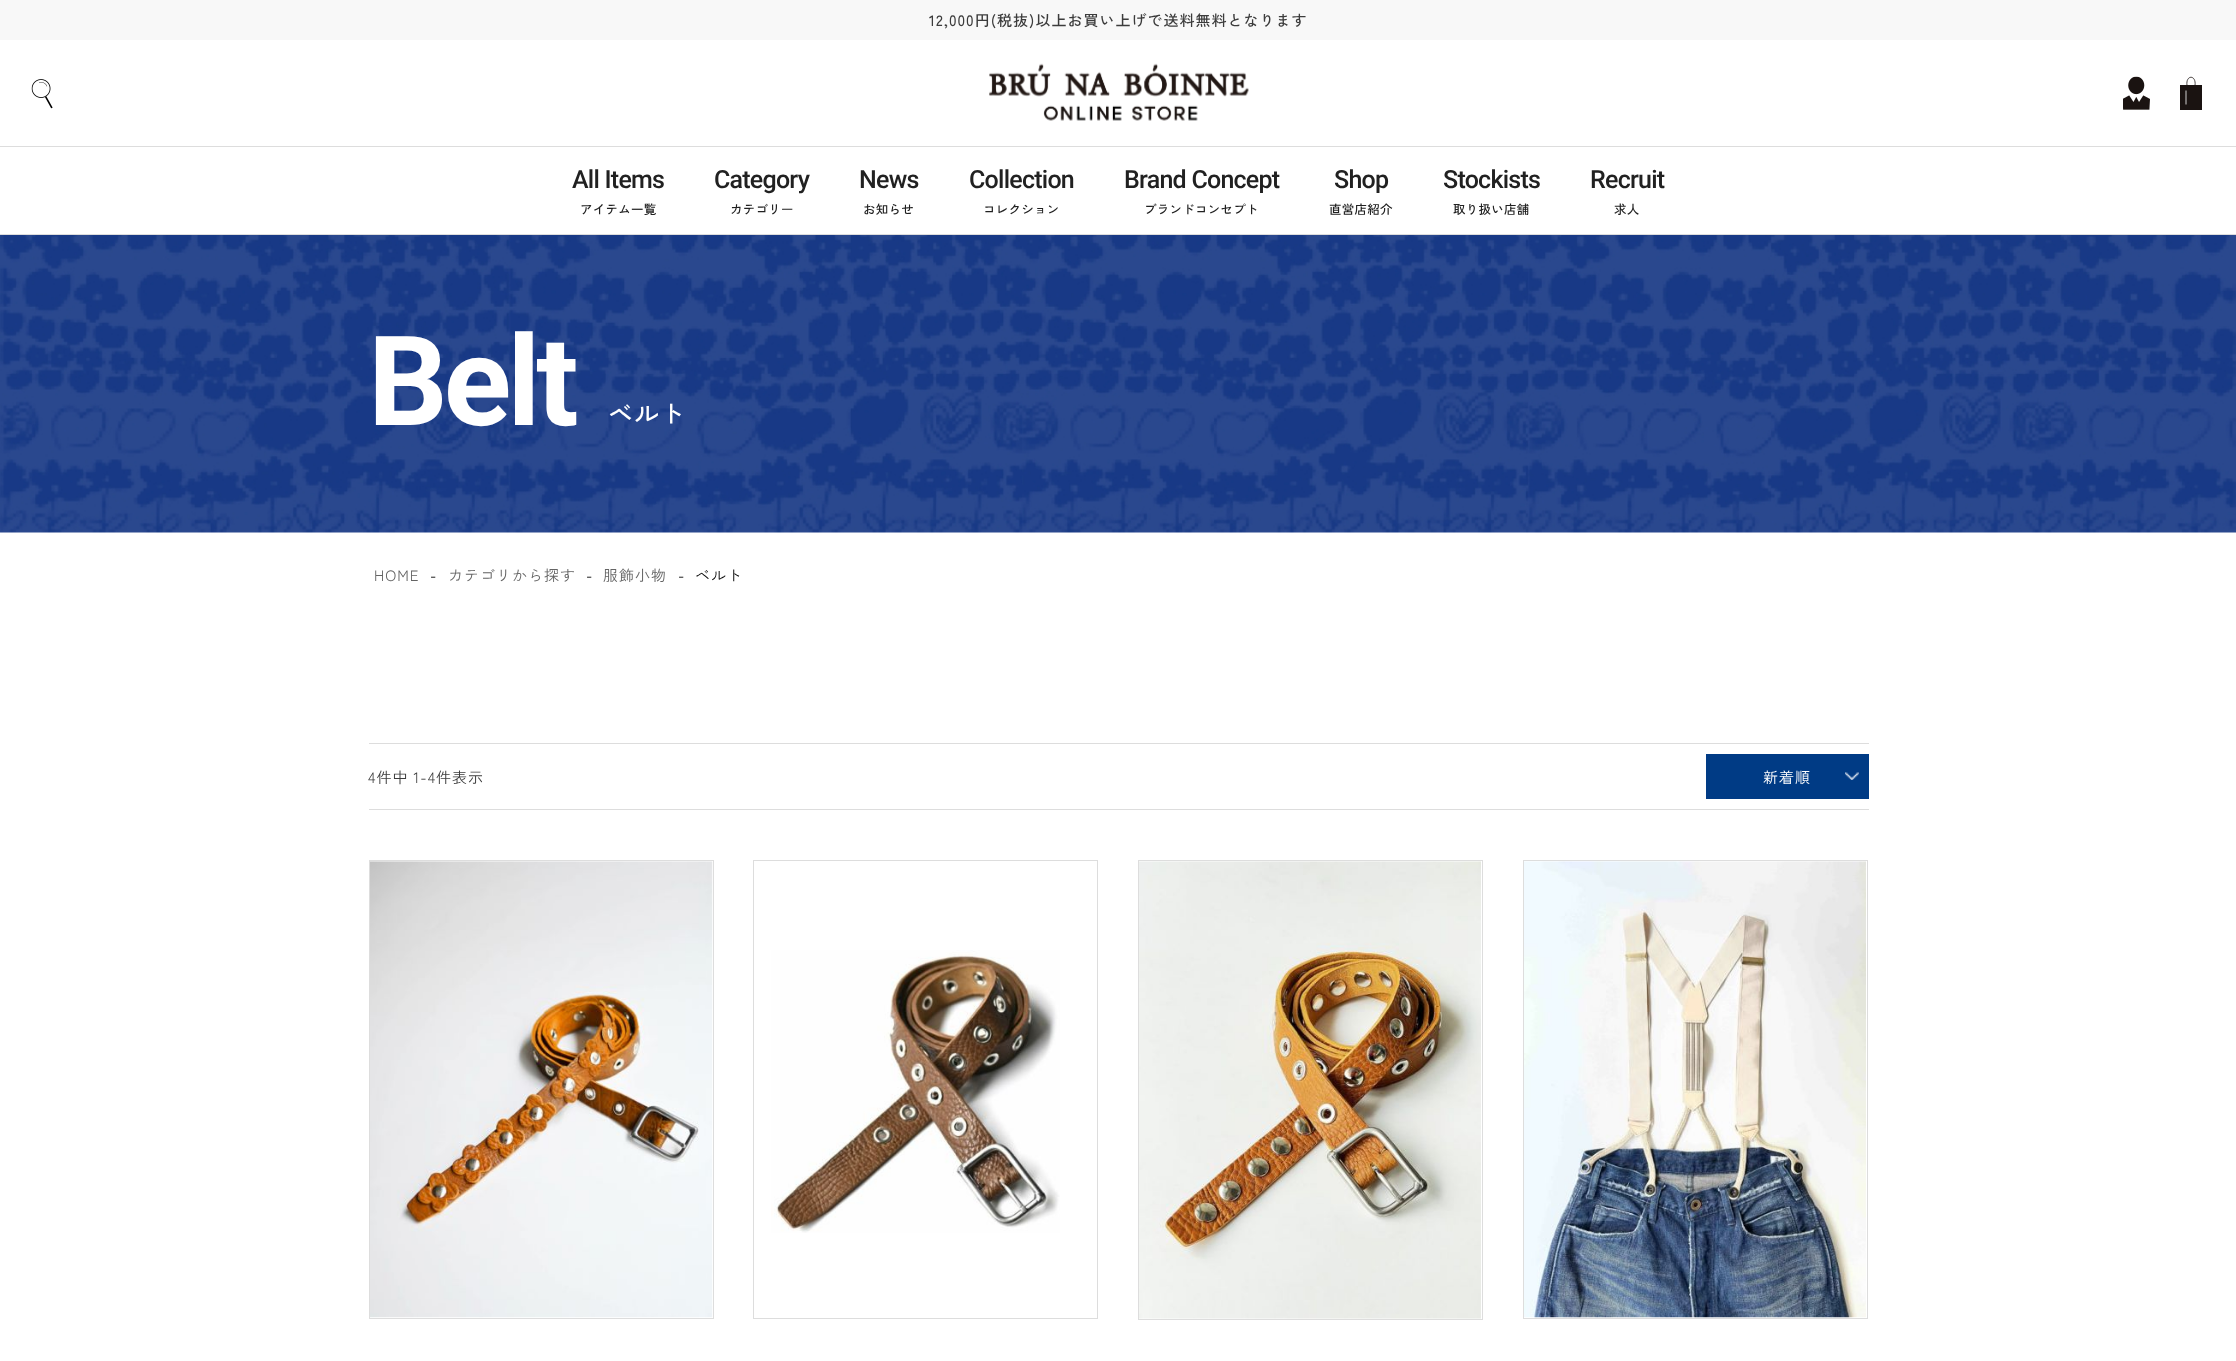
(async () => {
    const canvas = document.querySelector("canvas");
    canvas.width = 2236;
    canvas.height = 1361;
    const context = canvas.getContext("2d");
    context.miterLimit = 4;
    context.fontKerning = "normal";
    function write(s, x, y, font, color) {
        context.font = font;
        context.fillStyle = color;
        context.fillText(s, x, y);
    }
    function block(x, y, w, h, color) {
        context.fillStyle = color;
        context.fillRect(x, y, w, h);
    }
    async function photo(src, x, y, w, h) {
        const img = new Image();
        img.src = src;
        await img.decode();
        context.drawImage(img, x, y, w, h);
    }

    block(0, 0, 2236, 1361, "rgb(255, 255, 255)");
    block(0, 0, 2236, 40, "rgb(248, 248, 248)");
    context.letterSpacing = "1px";
    write("12,000円(税抜)以上お買い上げで送料無料となります", 929, 26, "500 15px Zen Kaku Gothic New", "rgb(60, 60, 60)");
    block(0, 146, 2236, 1, "rgb(221, 221, 221)");
    await photo("media/1.png", 31, 79, 22, 30);
    await photo("media/2.png", 989, 63, 260, 58);
    await photo("media/3.png", 2123, 76, 27, 34);
    block(2180, 85, 22, 25, "rgb(26, 19, 17)");
    context.beginPath();
    context.moveTo(2187, 85.5);
    context.bezierCurveTo(2185.5, 74.5, 2196.5, 74.5, 2195, 85.5);
    context.strokeStyle = "rgb(26, 19, 17)";
    context.lineWidth = 0.8;
    context.stroke();
    context.beginPath();
    context.moveTo(2186, 90.5);
    context.lineTo(2186, 104.5);
    context.strokeStyle = "rgb(255, 255, 255)";
    context.stroke();
    block(0, 234, 2236, 1, "rgb(221, 221, 221)");
    context.letterSpacing = "-0.75px";
    write("All Items", 572, 188, "500 25px Roboto", "rgb(33, 33, 33)");
    context.letterSpacing = "0.25px";
    write("アイテム一覧", 580, 214, "500 12.5px Zen Kaku Gothic New", "rgb(33, 33, 33)");
    context.letterSpacing = "-0.75px";
    write("Category", 714, 188, "500 25px Roboto", "rgb(33, 33, 33)");
    context.letterSpacing = "0.25px";
    write("カテゴリー", 730, 214, "500 12.5px Zen Kaku Gothic New", "rgb(33, 33, 33)");
    context.letterSpacing = "-0.75px";
    write("News", 859, 188, "500 25px Roboto", "rgb(33, 33, 33)");
    context.letterSpacing = "0.25px";
    write("お知らせ", 863, 214, "500 12.5px Zen Kaku Gothic New", "rgb(33, 33, 33)");
    context.letterSpacing = "-0.75px";
    write("Collection", 969, 188, "500 25px Roboto", "rgb(33, 33, 33)");
    context.letterSpacing = "0.25px";
    write("コレクション", 983, 214, "500 12.5px Zen Kaku Gothic New", "rgb(33, 33, 33)");
    context.letterSpacing = "-0.75px";
    write("Brand Concept", 1124, 188, "500 25px Roboto", "rgb(33, 33, 33)");
    context.letterSpacing = "0.25px";
    write("ブランドコンセプト", 1144, 214, "500 12.5px Zen Kaku Gothic New", "rgb(33, 33, 33)");
    context.letterSpacing = "-0.75px";
    write("Shop", 1334, 188, "500 25px Roboto", "rgb(33, 33, 33)");
    context.letterSpacing = "0.25px";
    write("直営店紹介", 1329, 214, "500 12.5px Zen Kaku Gothic New", "rgb(33, 33, 33)");
    context.letterSpacing = "-0.75px";
    write("Stockists", 1443, 188, "500 25px Roboto", "rgb(33, 33, 33)");
    context.letterSpacing = "0.25px";
    write("取り扱い店舗", 1453, 214, "500 12.5px Zen Kaku Gothic New", "rgb(33, 33, 33)");
    context.letterSpacing = "-0.75px";
    write("Recruit", 1590, 188, "500 25px Roboto", "rgb(33, 33, 33)");
    context.letterSpacing = "0.25px";
    write("求人", 1614, 214, "500 12.5px Zen Kaku Gothic New", "rgb(33, 33, 33)");
    await photo("media/4.png", 0, 235, 2236, 298);
    context.letterSpacing = "-4px";
    write("Belt", 368, 425, "bold 125px Roboto", "rgb(255, 255, 255)");
    context.letterSpacing = "1px";
    write("ベルト", 608, 423, "500 25px Zen Kaku Gothic New", "rgb(255, 255, 255)");
    write("HOME", 374, 581, "15px Zen Kaku Gothic New", "rgb(100, 100, 100)");
    write("-", 430, 581, "15px Zen Kaku Gothic New", "rgb(0, 0, 0)");
    write("カテゴリから探す", 448, 581, "15px Zen Kaku Gothic New", "rgb(100, 100, 100)");
    write("-", 586, 581, "15px Zen Kaku Gothic New", "rgb(0, 0, 0)");
    write("服飾小物", 603, 581, "15px Zen Kaku Gothic New", "rgb(100, 100, 100)");
    write("-", 678, 581, "15px Zen Kaku Gothic New", "rgb(0, 0, 0)");
    write("ベルト", 695, 581, "15px Zen Kaku Gothic New", "rgb(0, 0, 0)");
    block(369, 743, 1500, 1, "rgb(221, 221, 221)");
    block(369, 809, 1500, 1, "rgb(221, 221, 221)");
    write("4件中 1-4件表示", 368, 783, "15px Zen Kaku Gothic New", "rgb(60, 60, 60)");
    block(1706, 754, 163, 45, "rgb(0, 59, 133)");
    await photo("media/5.png", 1845, 772, 14, 8);
    write("新着順", 1763, 783, "15px Zen Kaku Gothic New", "rgb(255, 255, 255)");
    context.strokeStyle = "rgb(221, 221, 221)";
    context.lineWidth = 1;
    context.strokeRect(369.5, 860.5, 344, 458);
    await photo("media/6.png", 370, 861, 343, 457);
    context.strokeRect(753.5, 860.5, 344, 458);
    await photo("media/7.png", 771, 950, 289, 283);
    context.strokeRect(1138.5, 860.5, 344, 459);
    await photo("media/8.png", 1139, 861, 342, 458);
    context.strokeRect(1523.5, 860.5, 344, 458);
    await photo("media/9.png", 1524, 861, 342, 457);
})();
